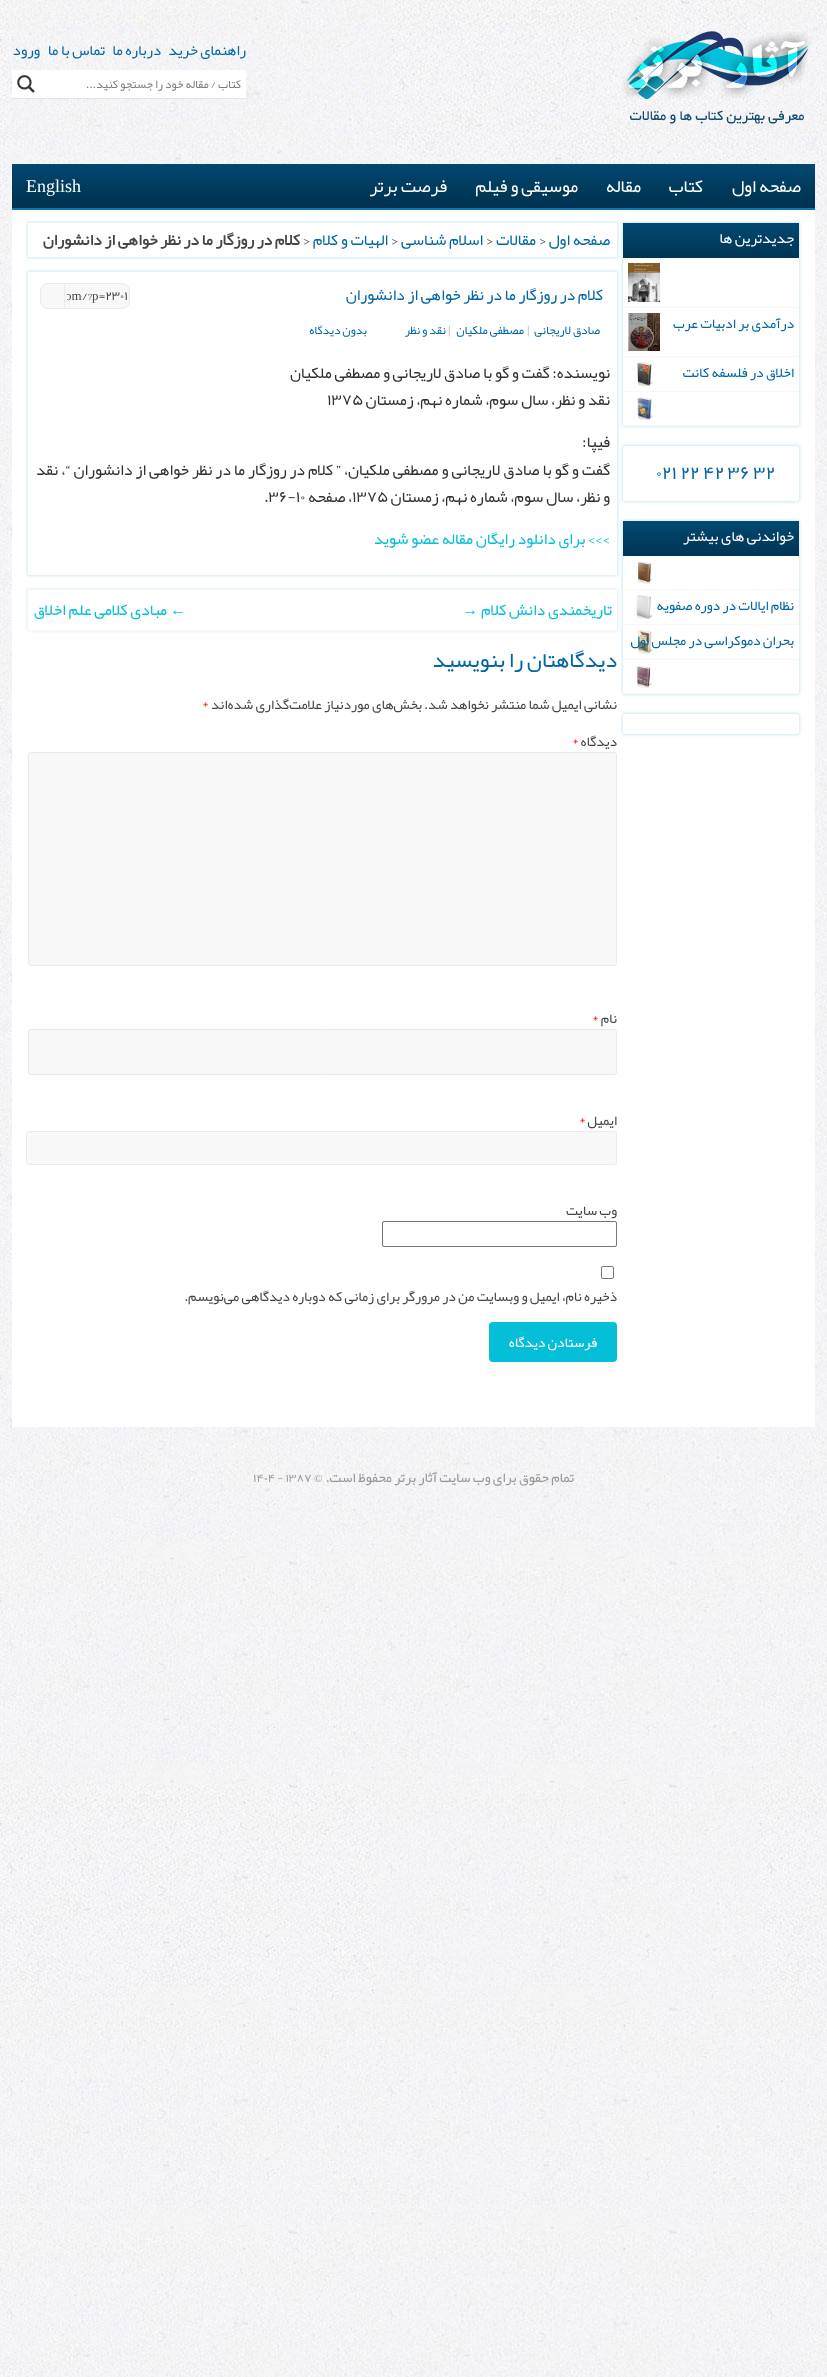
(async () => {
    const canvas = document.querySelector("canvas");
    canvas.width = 827;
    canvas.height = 2377;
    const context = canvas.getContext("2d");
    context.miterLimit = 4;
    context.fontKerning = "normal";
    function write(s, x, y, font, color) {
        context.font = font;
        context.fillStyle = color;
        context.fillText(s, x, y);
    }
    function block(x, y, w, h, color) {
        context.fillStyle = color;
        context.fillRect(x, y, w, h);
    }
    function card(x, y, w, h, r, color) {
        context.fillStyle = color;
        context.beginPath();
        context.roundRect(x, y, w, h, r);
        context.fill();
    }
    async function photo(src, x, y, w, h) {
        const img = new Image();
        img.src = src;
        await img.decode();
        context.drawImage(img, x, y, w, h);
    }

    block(0, 0, 827, 2377, "rgb(255, 255, 255)");
    await photo("media/1.png", 0, 0, 827, 2377);
    block(12, 210, 803, 1217, "rgb(255, 255, 255)");
    await photo("media/2.png", 12, 0, 803, 164);
    await photo("media/3.png", 622, 31, 190, 93);
    context.direction = "rtl";
    write("راهنمای خرید", 246, 55, "15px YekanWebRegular", "rgb(0, 102, 164)");
    write("درباره ما", 161, 55, "15px YekanWebRegular", "rgb(0, 102, 164)");
    write("تماس با ما", 105, 55, "15px YekanWebRegular", "rgb(0, 102, 164)");
    write("ورود", 40, 55, "15px YekanWebRegular", "rgb(0, 102, 164)");
    block(12, 98, 234, 1, "rgb(228, 228, 228)");
    block(12, 70, 234, 28, "rgb(255, 255, 255)");
    write("کتاب / مقاله خود را جستجو کنید...", 241, 88, "12px YekanWebRegular", "rgb(125, 125, 125)");
    await photo("media/4.png", 17, 75, 18, 18);
    await photo("media/5.png", 12, 164, 803, 44);
    block(12, 208, 803, 2, "rgb(16, 118, 174)");
    write("صفحه اول", 801, 192, "18px YekanWebRegular", "rgb(255, 255, 255)");
    write("کتاب", 703, 192, "18px YekanWebRegular", "rgb(255, 255, 255)");
    write("مقاله", 641, 192, "18px YekanWebRegular", "rgb(255, 255, 255)");
    write("موسیقی و فیلم", 578, 192, "18px YekanWebRegular", "rgb(255, 255, 255)");
    write("فرصت برتر", 447, 192, "18px YekanWebRegular", "rgb(255, 255, 255)");
    context.direction = "ltr";
    write("English", 26, 192, "18px Liberation Serif", "rgb(255, 255, 255)");
    context.save();
    context.beginPath();
    context.moveTo(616, 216);
    context.lineTo(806, 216);
    context.lineTo(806, 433);
    context.lineTo(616, 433);
    context.closePath();
    context.moveTo(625, 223);
    context.lineTo(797, 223);
    context.bezierCurveTo(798, 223, 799, 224, 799, 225);
    context.lineTo(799, 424);
    context.bezierCurveTo(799, 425, 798, 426, 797, 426);
    context.lineTo(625, 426);
    context.bezierCurveTo(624, 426, 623, 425, 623, 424);
    context.lineTo(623, 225);
    context.bezierCurveTo(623, 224, 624, 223, 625, 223);
    context.closePath();
    context.clip("evenodd");
    context.fillStyle = "rgba(96, 184, 219, 0.3)";
    context.filter = "blur(1.5px)";
    context.beginPath();
    context.roundRect(622, 222, 178, 205, 3);
    context.fill();
    context.filter = "none";
    context.restore();
    context.save();
    context.beginPath();
    context.moveTo(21, 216);
    context.lineTo(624, 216);
    context.lineTo(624, 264);
    context.lineTo(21, 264);
    context.closePath();
    context.moveTo(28, 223);
    context.lineTo(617, 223);
    context.lineTo(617, 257);
    context.lineTo(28, 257);
    context.closePath();
    context.clip("evenodd");
    context.fillStyle = "rgba(96, 184, 219, 0.3)";
    context.filter = "blur(1.5px)";
    context.beginPath();
    context.rect(27, 222, 591, 36);
    context.fill();
    context.filter = "none";
    context.restore();
    await photo("media/6.png", 623, 223, 176, 35);
    context.direction = "rtl";
    write("جدیدترین ها", 794, 243, "15px YekanWebRegular", "rgb(255, 255, 255)");
    context.save();
    context.beginPath();
    context.moveTo(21, 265);
    context.lineTo(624, 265);
    context.lineTo(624, 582);
    context.lineTo(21, 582);
    context.closePath();
    context.moveTo(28, 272);
    context.lineTo(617, 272);
    context.lineTo(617, 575);
    context.lineTo(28, 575);
    context.closePath();
    context.clip("evenodd");
    context.fillStyle = "rgba(96, 184, 219, 0.3)";
    context.filter = "blur(1.5px)";
    context.beginPath();
    context.rect(27, 271, 591, 305);
    context.fill();
    context.filter = "none";
    context.restore();
    block(623, 307, 176, 1, "rgb(248, 248, 248)");
    await photo("media/7.png", 628, 263, 32, 39);
    block(623, 356, 176, 1, "rgb(248, 248, 248)");
    write("درآمدی بر ادبیات عرب", 794, 328, "14px YekanWebRegular", "rgb(0, 102, 164)");
    await photo("media/8.png", 628, 313, 32, 38);
    block(623, 391, 176, 1, "rgb(248, 248, 248)");
    write("اخلاق در فلسفه کانت", 794, 377, "14px YekanWebRegular", "rgb(0, 102, 164)");
    await photo("media/9.png", 637, 362, 16, 24);
    block(623, 425, 176, 1, "rgb(248, 248, 248)");
    await photo("media/10.png", 637, 397, 17, 23);
    context.save();
    context.beginPath();
    context.moveTo(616, 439);
    context.lineTo(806, 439);
    context.lineTo(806, 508);
    context.lineTo(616, 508);
    context.closePath();
    context.moveTo(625, 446);
    context.lineTo(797, 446);
    context.bezierCurveTo(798, 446, 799, 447, 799, 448);
    context.lineTo(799, 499);
    context.bezierCurveTo(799, 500, 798, 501, 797, 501);
    context.lineTo(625, 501);
    context.bezierCurveTo(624, 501, 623, 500, 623, 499);
    context.lineTo(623, 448);
    context.bezierCurveTo(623, 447, 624, 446, 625, 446);
    context.closePath();
    context.clip("evenodd");
    context.fillStyle = "rgba(96, 184, 219, 0.3)";
    context.filter = "blur(1.5px)";
    context.beginPath();
    context.roundRect(622, 445, 178, 57, 3);
    context.fill();
    context.filter = "none";
    context.restore();
    context.direction = "ltr";
    write("021 22 42 36 32", 656, 479, "19px YekanWebRegular", "rgb(0, 102, 164)");
    context.save();
    context.beginPath();
    context.moveTo(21, 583);
    context.lineTo(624, 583);
    context.lineTo(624, 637);
    context.lineTo(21, 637);
    context.closePath();
    context.moveTo(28, 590);
    context.lineTo(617, 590);
    context.lineTo(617, 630);
    context.lineTo(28, 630);
    context.closePath();
    context.clip("evenodd");
    context.fillStyle = "rgba(96, 184, 219, 0.23)";
    context.filter = "blur(1.5px)";
    context.beginPath();
    context.rect(27, 589, 591, 42);
    context.fill();
    context.filter = "none";
    context.restore();
    block(28, 630, 589, 1, "rgb(248, 248, 248)");
    context.save();
    context.beginPath();
    context.moveTo(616, 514);
    context.lineTo(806, 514);
    context.lineTo(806, 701);
    context.lineTo(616, 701);
    context.closePath();
    context.moveTo(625, 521);
    context.lineTo(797, 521);
    context.bezierCurveTo(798, 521, 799, 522, 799, 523);
    context.lineTo(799, 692);
    context.bezierCurveTo(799, 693, 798, 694, 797, 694);
    context.lineTo(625, 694);
    context.bezierCurveTo(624, 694, 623, 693, 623, 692);
    context.lineTo(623, 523);
    context.bezierCurveTo(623, 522, 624, 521, 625, 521);
    context.closePath();
    context.clip("evenodd");
    context.fillStyle = "rgba(96, 184, 219, 0.3)";
    context.filter = "blur(1.5px)";
    context.beginPath();
    context.roundRect(622, 520, 178, 175, 3);
    context.fill();
    context.filter = "none";
    context.restore();
    await photo("media/6.png", 623, 521, 176, 35);
    context.direction = "rtl";
    write("خواندنی های بیشتر", 794, 541, "15px YekanWebRegular", "rgb(255, 255, 255)");
    block(623, 589, 176, 1, "rgb(248, 248, 248)");
    await photo("media/11.png", 638, 561, 15, 23);
    block(623, 624, 176, 1, "rgb(248, 248, 248)");
    write("ن‍ظام‌ ای‍الات‌ در دوره‌ ص‍ف‍وی‍ه‌", 794, 610, "14px YekanWebRegular", "rgb(0, 102, 164)");
    await photo("media/12.png", 636, 595, 17, 24);
    block(623, 659, 176, 1, "rgb(248, 248, 248)");
    await photo("media/13.png", 637, 630, 17, 24);
    write("بحران‌ دموکراسی‌ در مجلس‌ اول‌", 794, 645, "14px YekanWebRegular", "rgb(0, 102, 164)");
    block(623, 693, 176, 1, "rgb(248, 248, 248)");
    await photo("media/14.png", 636, 665, 16, 23);
    context.save();
    context.beginPath();
    context.moveTo(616, 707);
    context.lineTo(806, 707);
    context.lineTo(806, 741);
    context.lineTo(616, 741);
    context.closePath();
    context.moveTo(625, 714);
    context.lineTo(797, 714);
    context.bezierCurveTo(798, 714, 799, 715, 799, 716);
    context.lineTo(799, 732);
    context.bezierCurveTo(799, 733, 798, 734, 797, 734);
    context.lineTo(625, 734);
    context.bezierCurveTo(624, 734, 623, 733, 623, 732);
    context.lineTo(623, 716);
    context.bezierCurveTo(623, 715, 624, 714, 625, 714);
    context.closePath();
    context.clip("evenodd");
    context.fillStyle = "rgba(96, 184, 219, 0.3)";
    context.filter = "blur(1.5px)";
    context.beginPath();
    context.roundRect(622, 713, 178, 22, 3);
    context.fill();
    context.filter = "none";
    context.restore();
    write("صفحه اول", 610, 245, "16px YekanWebRegular", "rgb(0, 102, 164)");
    context.direction = "ltr";
    write(">", 539, 245, "16px YekanWebRegular", "rgb(70, 70, 70)");
    context.direction = "rtl";
    write("مقالات", 536, 245, "16px YekanWebRegular", "rgb(0, 102, 164)");
    context.direction = "ltr";
    write(">", 486, 245, "16px YekanWebRegular", "rgb(70, 70, 70)");
    context.direction = "rtl";
    write("اسلام شناسی", 483, 245, "16px YekanWebRegular", "rgb(0, 102, 164)");
    context.direction = "ltr";
    write(">", 391, 245, "16px YekanWebRegular", "rgb(70, 70, 70)");
    context.direction = "rtl";
    write("الهیات و کلام", 388, 245, "16px YekanWebRegular", "rgb(0, 102, 164)");
    context.direction = "ltr";
    write(">", 303, 245, "16px YekanWebRegular", "rgb(70, 70, 70)");
    context.direction = "rtl";
    write("کلام در روزگار ما در نظر خواهی از دانشوران", 300, 245, "bold 16px YekanWebRegular", "rgb(70, 70, 70)");
    write("کلام در روزگار ما در نظر خواهی از دانشوران", 603, 300, "16px YekanWebRegular", "rgb(0, 102, 164)");
    context.fillStyle = "rgb(248, 248, 248)";
    context.beginPath();
    context.roundRect(40.5, 283.5, 24, 25, [7.5, 0, 0, 7.5]);
    context.fill();
    context.strokeStyle = "rgb(234, 234, 234)";
    context.stroke();
    context.beginPath();
    context.roundRect(64.5, 283.5, 65, 25, [0, 7.5, 7.5, 0]);
    context.fill();
    context.stroke();
    context.direction = "ltr";
    write("=2301", 99, 300, "13px YekanWebRegular", "rgb(70, 70, 70)");
    write("p", 92, 300, "13px Liberation Serif", "rgb(70, 70, 70)");
    write("/?", 82, 300, "13px YekanWebRegular", "rgb(70, 70, 70)");
    context.save();
    context.beginPath();
    context.rect(67, 286, 60, 20);
    context.clip();
    write("om", 65, 300, "13px Liberation Serif", "rgb(70, 70, 70)");
    context.restore();
    context.direction = "rtl";
    write("صادق لاریجانی", 600, 334, "12px YekanWebRegular", "rgb(0, 102, 164)");
    context.direction = "ltr";
    write("|", 527, 334, "12px Liberation Serif", "rgb(170, 170, 170)");
    context.direction = "rtl";
    write("مصطفی ملکیان", 524, 334, "12px YekanWebRegular", "rgb(0, 102, 164)");
    context.direction = "ltr";
    write("|", 448, 334, "12px Liberation Serif", "rgb(170, 170, 170)");
    context.direction = "rtl";
    write("نقد و نظر", 446, 334, "12px YekanWebRegular", "rgb(0, 102, 164)");
    write("بدون دیدگاه", 367, 334, "12px YekanWebRegular", "rgb(0, 102, 164)");
    write("نویسنده: گفت و گو با صادق لاریجانی و مصطفی ملکیان", 610, 378, "16px YekanWebRegular", "rgb(50, 49, 49)");
    write("نقد و نظر، سال سوم، شماره نهم، زمستان", 610, 405, "16px YekanWebRegular", "rgb(50, 49, 49)");
    context.direction = "ltr";
    write("۱۳۷۵", 327, 405, "16px YekanWebRegular", "rgb(50, 49, 49)");
    context.direction = "rtl";
    write("فیپا:", 610, 447, "16px YekanWebRegular", "rgb(50, 49, 49)");
    context.wordSpacing = "0.3px";
    write("گفت و گو با صادق لاریجانی و مصطفی ملکیان، ” کلام در روزگار ما در نظر خواهی از دانشوران “، نقد", 610, 475, "16px YekanWebRegular", "rgb(50, 49, 49)");
    context.wordSpacing = "0px";
    write("و نظر، سال سوم، شماره نهم، زمستان", 610, 502, "16px YekanWebRegular", "rgb(50, 49, 49)");
    context.direction = "ltr";
    write("۱۳۷۵", 352, 502, "16px YekanWebRegular", "rgb(50, 49, 49)");
    context.direction = "rtl";
    write("، صفحه", 352, 502, "16px YekanWebRegular", "rgb(50, 49, 49)");
    context.direction = "ltr";
    write(".۳۶-۱۰", 264, 502, "16px YekanWebRegular", "rgb(50, 49, 49)");
    context.direction = "rtl";
    write(">>> برای دانلود رایگان مقاله عضو شوید", 610, 544, "16px YekanWebRegular", "rgb(5, 191, 216)");
    write("تاریخمندی دانش کلام", 612, 615, "16px YekanWebRegular", "rgb(5, 191, 216)");
    context.direction = "ltr";
    write("→", 462, 615, "16px Liberation Serif", "rgb(5, 191, 216)");
    write("←", 170, 615, "16px Liberation Serif", "rgb(5, 191, 216)");
    context.direction = "rtl";
    write("مبادی کلامی علم اخلاق", 167, 615, "16px YekanWebRegular", "rgb(5, 191, 216)");
    write("دیدگاهتان را بنویسید", 617, 667, "22px YekanWebRegular", "rgb(0, 102, 164)");
    write("نشانی ایمیل شما منتشر نخواهد شد.", 617, 709, "14px YekanWebRegular", "rgb(70, 70, 70)");
    write("بخش‌های موردنیاز علامت‌گذاری شده‌اند", 422, 709, "14px YekanWebRegular", "rgb(70, 70, 70)");
    context.direction = "ltr";
    write("*", 202, 709, "14px YekanWebRegular", "rgb(255, 0, 0)");
    context.direction = "rtl";
    write("دیدگاه", 617, 746, "14px YekanWebRegular", "rgb(70, 70, 70)");
    context.direction = "ltr";
    write("*", 572, 746, "14px YekanWebRegular", "rgb(255, 0, 0)");
    context.fillStyle = "rgb(248, 248, 248)";
    context.beginPath();
    context.roundRect(28.5, 752.5, 588, 213, 2.5);
    context.fill();
    context.stroke();
    context.direction = "rtl";
    write("نام", 617, 1023, "14px YekanWebRegular", "rgb(70, 70, 70)");
    context.direction = "ltr";
    write("*", 592, 1023, "14px YekanWebRegular", "rgb(255, 0, 0)");
    context.fillStyle = "rgb(248, 248, 248)";
    context.beginPath();
    context.roundRect(28.5, 1029.5, 588, 45, 2.5);
    context.fill();
    context.stroke();
    context.direction = "rtl";
    write("ایمیل", 617, 1125, "14px YekanWebRegular", "rgb(70, 70, 70)");
    context.direction = "ltr";
    write("*", 579, 1125, "14px YekanWebRegular", "rgb(255, 0, 0)");
    context.fillStyle = "rgb(248, 248, 248)";
    context.beginPath();
    context.roundRect(26.5, 1131.5, 590, 33, 2.5);
    context.fill();
    context.stroke();
    context.direction = "rtl";
    write("وب‌ سایت", 617, 1215, "14px YekanWebRegular", "rgb(70, 70, 70)");
    context.beginPath();
    context.roundRect(382.5, 1221.5, 234, 25, 1.5);
    context.strokeStyle = "rgb(118, 118, 118)";
    context.stroke();
    context.beginPath();
    context.roundRect(601.5, 1266.5, 12, 12, 1.5);
    context.stroke();
    write("ذخیره نام، ایمیل و وبسایت من در مرورگر برای زمانی که دوباره دیدگاهی می‌نویسم.", 617, 1301, "14px YekanWebRegular", "rgb(70, 70, 70)");
    card(489, 1322, 128, 40, 4, "rgb(5, 191, 216)");
    write("فرستادن دیدگاه", 597, 1347, "14px YekanWebRegular", "rgb(255, 255, 255)");
    write("تمام حقوق برای وب سايت آثار برتر محفوظ است.", 574, 1482, "14px YekanWebRegular", "rgb(152, 152, 152)");
    context.direction = "ltr";
    write("©", 314, 1482, "11px Liberation Serif", "rgb(152, 152, 152)");
    write("۱۴۰۴ - 1387", 253, 1482, "12px YekanWebRegular", "rgb(152, 152, 152)");
})();
